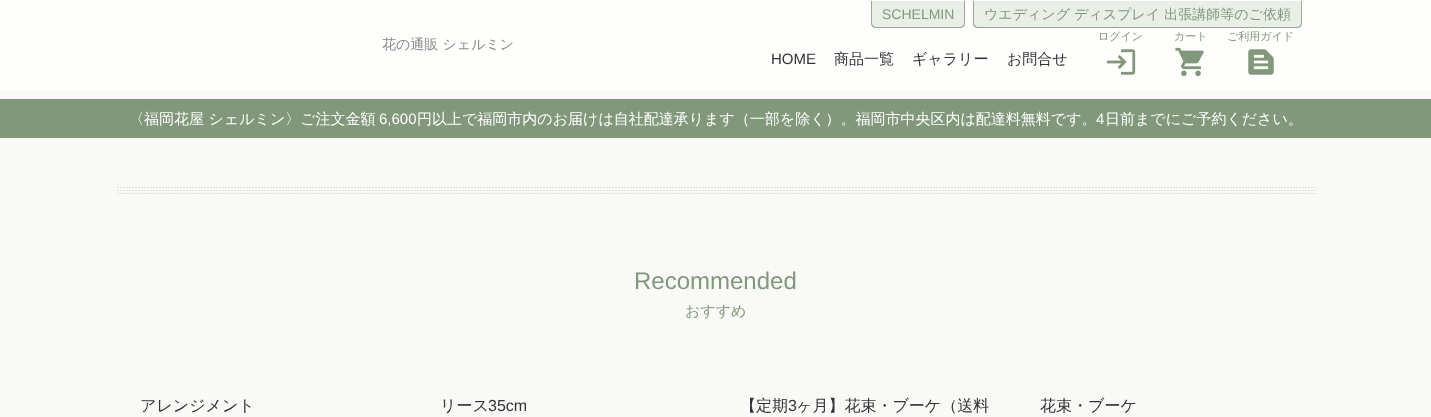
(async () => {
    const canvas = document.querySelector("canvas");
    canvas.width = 1431;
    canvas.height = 417;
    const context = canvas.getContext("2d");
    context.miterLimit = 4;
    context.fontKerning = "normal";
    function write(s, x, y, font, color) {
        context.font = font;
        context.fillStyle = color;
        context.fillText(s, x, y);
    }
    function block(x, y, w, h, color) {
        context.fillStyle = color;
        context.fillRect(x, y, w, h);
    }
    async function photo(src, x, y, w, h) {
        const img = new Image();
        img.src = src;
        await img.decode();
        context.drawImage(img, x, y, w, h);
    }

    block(0, 0, 1431, 417, "rgb(249, 250, 247)");
    block(0, 0, 1431, 89, "rgb(254, 254, 253)");
    context.fillStyle = "rgb(233, 238, 231)";
    context.beginPath();
    context.roundRect(871, 1, 94, 27, [0, 0, 5, 5]);
    context.fill();
    context.fillStyle = "rgb(153, 169, 148)";
    context.beginPath();
    context.moveTo(871, 1);
    context.lineTo(965, 1);
    context.lineTo(965, 23);
    context.bezierCurveTo(965, 26, 963, 28, 960, 28);
    context.lineTo(876, 28);
    context.bezierCurveTo(873, 28, 871, 26, 871, 23);
    context.closePath();
    context.moveTo(872, 1);
    context.lineTo(964, 1);
    context.lineTo(964, 23);
    context.bezierCurveTo(964, 25, 962, 27, 960, 27);
    context.lineTo(876, 27);
    context.bezierCurveTo(874, 27, 872, 25, 872, 23);
    context.closePath();
    context.fill("evenodd");
    write("SCHELMIN", 882, 19, "14px Liberation Sans", "rgb(129, 152, 122)");
    context.fillStyle = "rgb(233, 238, 231)";
    context.beginPath();
    context.roundRect(973, 1, 329, 27, [0, 0, 5, 5]);
    context.fill();
    context.fillStyle = "rgb(153, 169, 148)";
    context.beginPath();
    context.moveTo(973, 1);
    context.lineTo(1302, 1);
    context.lineTo(1302, 23);
    context.bezierCurveTo(1302, 26, 1300, 28, 1297, 28);
    context.lineTo(978, 28);
    context.bezierCurveTo(975, 28, 973, 26, 973, 23);
    context.closePath();
    context.moveTo(974, 1);
    context.lineTo(1301, 1);
    context.lineTo(1301, 23);
    context.bezierCurveTo(1301, 25, 1299, 27, 1297, 27);
    context.lineTo(978, 27);
    context.bezierCurveTo(976, 27, 974, 25, 974, 23);
    context.closePath();
    context.fill("evenodd");
    write("ウエディング ディスプレイ 出張講師等のご依頼", 984, 19, "500 14px WenQuanYi Zen Hei", "rgb(129, 152, 122)");
    write("花の通販 シェルミン", 382, 49, "500 14px WenQuanYi Zen Hei", "rgb(137, 137, 137)");
    write("ログイン", 1098, 40, "500 11px WenQuanYi Zen Hei", "rgb(129, 152, 122)");
    await photo("media/1.png", 1106, 49, 30, 26);
    write("カート", 1174, 40, "500 11px WenQuanYi Zen Hei", "rgb(129, 152, 122)");
    await photo("media/2.png", 1175, 47, 29, 30);
    write("ご利用ガイド", 1227, 40, "500 11px WenQuanYi Zen Hei", "rgb(129, 152, 122)");
    await photo("media/3.png", 1248, 49, 26, 26);
    write("HOME", 771, 64, "15px Liberation Sans", "rgb(51, 51, 51)");
    write("商品一覧", 834, 64, "500 15px WenQuanYi Zen Hei", "rgb(51, 51, 51)");
    write("ギャラリー", 912, 64, "500 15px WenQuanYi Zen Hei", "rgb(51, 51, 51)");
    write("お問合せ", 1007, 64, "500 15px WenQuanYi Zen Hei", "rgb(51, 51, 51)");
    block(0, 99, 1431, 39, "rgb(129, 152, 122)");
    write("〈福岡花屋 シェルミン〉ご注文金額", 129, 124, "500 15px WenQuanYi Zen Hei", "rgb(255, 255, 255)");
    write("6,600", 379, 124, "15px Liberation Sans", "rgb(255, 255, 255)");
    write("円以上で福岡市内のお届けは自社配達承ります（一部を除く）。福岡市中央区内は配達料無料です。", 417, 124, "500 15px WenQuanYi Zen Hei", "rgb(255, 255, 255)");
    write("4", 1096, 124, "15px Liberation Sans", "rgb(255, 255, 255)");
    write("日前までにご予約ください。", 1105, 124, "500 15px WenQuanYi Zen Hei", "rgb(255, 255, 255)");
    await photo("media/4.png", 117, 187, 1199, 7);
    write("Recommended", 634, 289, "24px Liberation Sans", "rgb(129, 152, 122)");
    write("おすすめ", 685, 316, "500 15px WenQuanYi Zen Hei", "rgb(129, 152, 122)");
    write("アレンジメント", 140, 411, "500 16px WenQuanYi Zen Hei", "rgb(51, 51, 51)");
    write("リース", 440, 411, "500 16px WenQuanYi Zen Hei", "rgb(51, 51, 51)");
    write("35cm", 488, 411, "16px Liberation Sans", "rgb(51, 51, 51)");
    write("【定期", 740, 411, "500 16px WenQuanYi Zen Hei", "rgb(51, 51, 51)");
    write("3", 788, 411, "16px Liberation Sans", "rgb(51, 51, 51)");
    write("ヶ月】花束・ブーケ（送料", 796, 411, "500 16px WenQuanYi Zen Hei", "rgb(51, 51, 51)");
    write("花束・ブーケ", 1040, 411, "500 16px WenQuanYi Zen Hei", "rgb(51, 51, 51)");
})();
